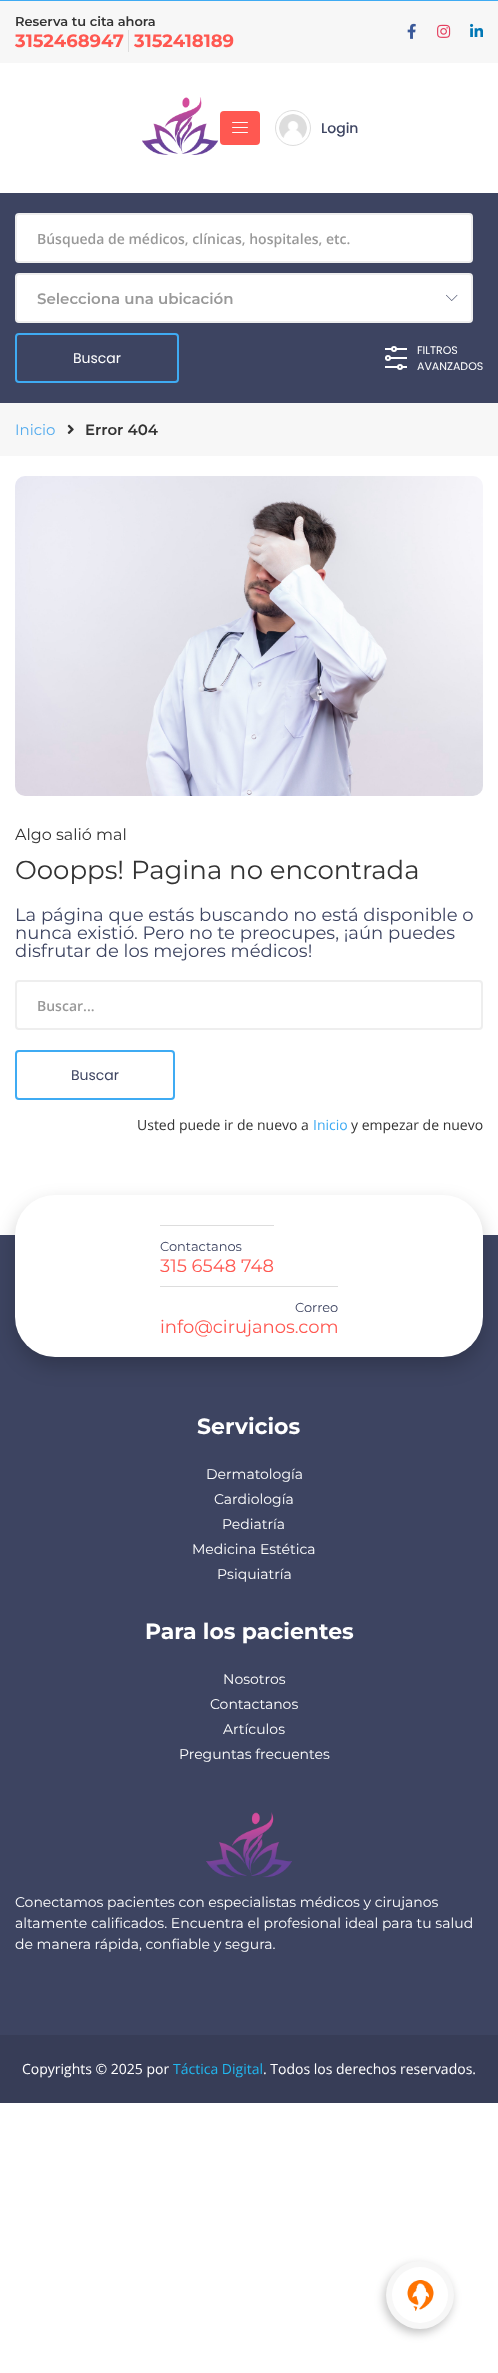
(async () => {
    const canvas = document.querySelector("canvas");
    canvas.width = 498;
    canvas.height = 2373;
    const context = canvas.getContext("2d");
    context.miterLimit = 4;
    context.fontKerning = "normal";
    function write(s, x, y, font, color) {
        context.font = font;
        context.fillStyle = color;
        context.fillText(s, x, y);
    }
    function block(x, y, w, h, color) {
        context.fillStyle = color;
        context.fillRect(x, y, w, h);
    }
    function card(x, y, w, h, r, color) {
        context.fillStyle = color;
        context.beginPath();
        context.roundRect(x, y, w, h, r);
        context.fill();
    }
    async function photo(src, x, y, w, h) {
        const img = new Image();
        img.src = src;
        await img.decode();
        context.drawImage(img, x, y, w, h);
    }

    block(0, 0, 498, 2373, "rgb(255, 255, 255)");
    block(0, 1, 498, 62, "rgb(247, 247, 247)");
    block(0, 0, 498, 1, "rgb(63, 171, 243)");
    write("Reserva tu cita ahora", 15, 26, "600 13px Montserrat", "rgb(51, 51, 51)");
    write("3152468947", 15, 47, "bold 18px Montserrat", "rgb(255, 88, 81)");
    write("3152418189", 134, 47, "bold 18px Montserrat", "rgb(255, 88, 81)");
    block(128, 30, 1, 22, "rgb(221, 221, 221)");
    await photo("media/1.png", 407, 23, 9, 16);
    await photo("media/2.png", 437, 24, 14, 14);
    await photo("media/3.png", 470, 23, 13, 14);
    await photo("media/4.png", 142, 97, 77, 58);
    card(220, 111, 40, 34, 4, "rgb(255, 88, 81)");
    await photo("media/5.png", 232, 122, 16, 11);
    context.beginPath();
    context.arc(293, 128, 17.5, 0, Math.PI * 2);
    context.strokeStyle = "rgb(221, 221, 221)";
    context.stroke();
    await photo("media/6.png", 279, 114, 28, 24);
    write("Login", 321, 133, "500 14px Poppins", "rgb(61, 68, 97)");
    block(0, 193, 498, 210, "rgb(61, 68, 97)");
    context.fillStyle = "rgb(255, 255, 255)";
    context.beginPath();
    context.roundRect(16, 214, 456, 48, 3);
    context.fill();
    context.strokeStyle = "rgb(238, 238, 238)";
    context.lineWidth = 2;
    context.stroke();
    write("Búsqueda de médicos, clínicas, hospitales, etc.", 37, 244, "600 14px Open Sans", "rgb(153, 153, 153)");
    context.fillStyle = "rgb(255, 255, 255)";
    context.beginPath();
    context.roundRect(16, 274, 456, 48, 3);
    context.fill();
    context.stroke();
    write("Selecciona una ubicación", 37, 304, "600 15px Montserrat", "rgb(153, 153, 153)");
    await photo("media/7.png", 446, 294, 12, 7);
    context.beginPath();
    context.roundRect(16, 334, 162, 48, 3);
    context.strokeStyle = "rgb(63, 171, 243)";
    context.stroke();
    write("Buscar", 73, 363, "14px Poppins", "rgb(255, 255, 255)");
    block(385, 348, 22, 2, "rgb(255, 255, 255)");
    context.fillStyle = "rgb(61, 68, 97)";
    context.beginPath();
    context.arc(394, 349, 2, 0, Math.PI * 2);
    context.fill();
    context.strokeStyle = "rgb(255, 255, 255)";
    context.stroke();
    block(385, 357, 22, 2, "rgb(255, 255, 255)");
    context.fillStyle = "rgb(61, 68, 97)";
    context.beginPath();
    context.arc(388, 358, 2, 0, Math.PI * 2);
    context.fill();
    context.stroke();
    block(385, 366, 22, 2, "rgb(255, 255, 255)");
    context.fillStyle = "rgb(61, 68, 97)";
    context.beginPath();
    context.arc(400, 367, 2, 0, Math.PI * 2);
    context.fill();
    context.stroke();
    write("FILTROS", 417, 354, "11px Poppins", "rgb(255, 255, 255)");
    write("AVANZADOS", 417, 370, "11px Poppins", "rgb(255, 255, 255)");
    block(0, 403, 498, 53, "rgb(247, 247, 247)");
    write("Inicio", 15, 435, "15px Montserrat", "rgb(85, 172, 238)");
    await photo("media/8.png", 67, 424, 7, 10);
    write("Error 404", 85, 435, "600 15px Montserrat", "rgb(51, 51, 51)");
    await photo("media/9.png", 15, 476, 468, 320);
    write("Algo salió mal", 15, 840, "16px Montserrat", "rgb(51, 51, 51)");
    write("Ooopps! Pagina no encontrada", 15, 879, "26px Montserrat", "rgb(51, 51, 51)");
    write("La página que estás buscando no está disponible o", 15, 921, "18px Montserrat", "rgb(61, 68, 97)");
    write("nunca existió. Pero no te preocupes, ¡aún puedes", 15, 939, "18px Montserrat", "rgb(61, 68, 97)");
    write("disfrutar de los mejores médicos!", 15, 957, "18px Montserrat", "rgb(61, 68, 97)");
    context.beginPath();
    context.roundRect(16, 981, 466, 48, 3);
    context.strokeStyle = "rgb(238, 238, 238)";
    context.stroke();
    write("Buscar...", 37, 1011, "600 14px Open Sans", "rgb(153, 153, 153)");
    context.beginPath();
    context.roundRect(16, 1051, 158, 48, 3);
    context.strokeStyle = "rgb(63, 171, 243)";
    context.stroke();
    write("Buscar", 71, 1080, "14px Poppins", "rgb(61, 68, 97)");
    write("Usted puede ir de nuevo a", 137, 1130, "14px Open Sans", "rgb(51, 51, 51)");
    write("Inicio", 313, 1130, "14px Open Sans", "rgb(63, 171, 243)");
    write("y empezar de nuevo", 351, 1130, "14px Open Sans", "rgb(51, 51, 51)");
    block(0, 1235, 498, 800, "rgb(61, 68, 97)");
    context.fillStyle = "rgba(0, 0, 0, 0.2)";
    context.filter = "blur(10px)";
    context.beginPath();
    context.roundRect(15, 1204, 468, 162, 40);
    context.fill();
    context.filter = "none";
    card(15, 1195, 468, 162, 40, "rgb(255, 255, 255)");
    block(160, 1225, 114, 1, "rgb(221, 221, 221)");
    write("Contactanos", 160, 1251, "13px Montserrat", "rgb(61, 68, 97)");
    write("315 6548 748", 160, 1272, "18px Montserrat", "rgb(255, 88, 81)");
    block(160, 1286, 178, 1, "rgb(221, 221, 221)");
    write("Correo", 295, 1312, "13px Montserrat", "rgb(61, 68, 97)");
    write("info@cirujanos.com", 160, 1333, "18px Montserrat", "rgb(255, 88, 81)");
    write("Servicios", 197, 1434, "bold 22px Montserrat", "rgb(255, 255, 255)");
    write("Dermatología", 206, 1479, "14px Montserrat", "rgb(255, 255, 255)");
    write("Cardiología", 214, 1504, "14px Montserrat", "rgb(255, 255, 255)");
    write("Pediatría", 222, 1529, "14px Montserrat", "rgb(255, 255, 255)");
    write("Medicina Estética", 192, 1554, "14px Montserrat", "rgb(255, 255, 255)");
    write("Psiquiatría", 217, 1579, "14px Montserrat", "rgb(255, 255, 255)");
    write("Para los pacientes", 145, 1639, "bold 22px Montserrat", "rgb(255, 255, 255)");
    write("Nosotros", 223, 1684, "14px Montserrat", "rgb(255, 255, 255)");
    write("Contactanos", 210, 1709, "14px Montserrat", "rgb(255, 255, 255)");
    write("Artículos", 223, 1734, "14px Montserrat", "rgb(255, 255, 255)");
    write("Preguntas frecuentes", 179, 1759, "14px Montserrat", "rgb(255, 255, 255)");
    await photo("media/10.png", 206, 1812, 86, 66);
    write("Conectamos pacientes con especialistas médicos y cirujanos", 15, 1907, "14px Montserrat", "rgb(255, 255, 255)");
    write("altamente calificados. Encuentra el profesional ideal para tu salud", 15, 1928, "14px Montserrat", "rgb(255, 255, 255)");
    write("de manera rápida, confiable y segura.", 15, 1949, "14px Montserrat", "rgb(255, 255, 255)");
    block(0, 2035, 498, 68, "rgb(55, 61, 87)");
    write("Copyrights © 2025 por", 22, 2074, "14px Open Sans", "rgb(255, 255, 255)");
    write("Táctica Digital", 173, 2074, "14px Open Sans", "rgb(33, 184, 240)");
    write(". Todos los derechos reservados.", 263, 2074, "14px Open Sans", "rgb(255, 255, 255)");
    context.fillStyle = "rgba(0, 0, 0, 0.24)";
    context.filter = "blur(5px)";
    context.beginPath();
    context.roundRect(384, 2265, 68, 68, 34);
    context.fill();
    context.filter = "none";
    context.fillStyle = "rgb(247, 247, 247)";
    context.beginPath();
    context.arc(420, 2295, 34, 0, Math.PI * 2);
    context.fill();
    context.fillStyle = "rgb(255, 255, 255)";
    context.beginPath();
    context.arc(420, 2295, 28, 0, Math.PI * 2);
    context.fill();
    await photo("media/11.png", 407, 2280, 27, 31);
})();
